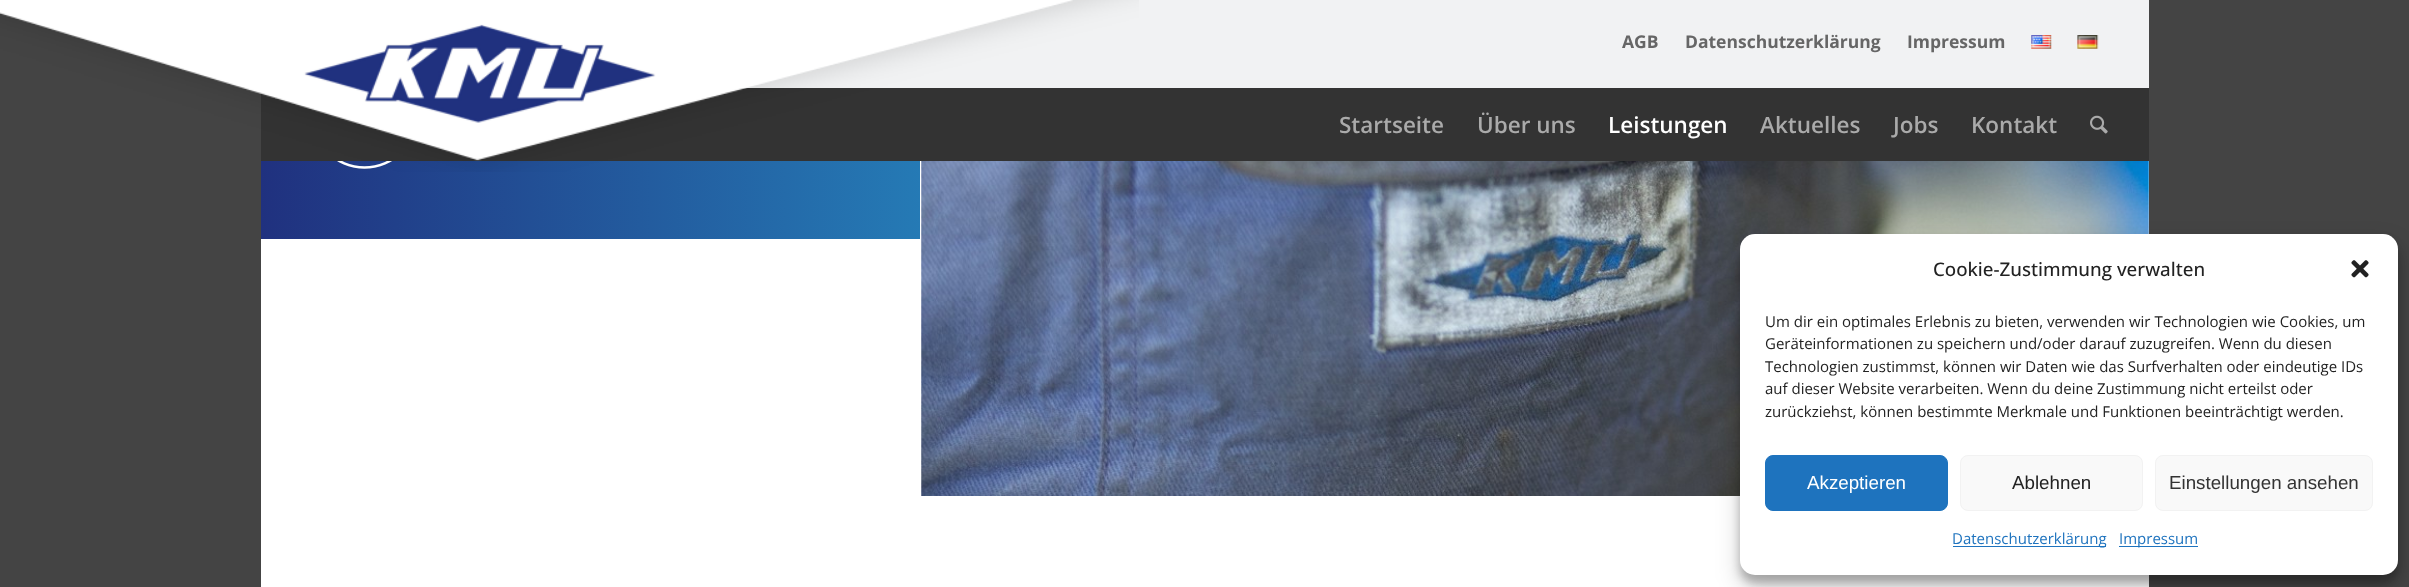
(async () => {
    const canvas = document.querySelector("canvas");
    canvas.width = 2409;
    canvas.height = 587;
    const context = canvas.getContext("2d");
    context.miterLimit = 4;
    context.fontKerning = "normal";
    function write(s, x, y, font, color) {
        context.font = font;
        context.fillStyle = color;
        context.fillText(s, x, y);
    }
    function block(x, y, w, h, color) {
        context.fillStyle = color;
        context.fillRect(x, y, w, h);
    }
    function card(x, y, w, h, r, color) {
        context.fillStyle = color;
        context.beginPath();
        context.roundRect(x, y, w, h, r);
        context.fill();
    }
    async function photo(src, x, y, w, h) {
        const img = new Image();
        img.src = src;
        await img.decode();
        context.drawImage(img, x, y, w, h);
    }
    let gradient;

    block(0, 0, 2409, 587, "rgb(68, 68, 68)");
    block(742, 0, 1407, 88, "rgb(241, 242, 243)");
    block(261, 88, 1888, 73, "rgb(51, 51, 51)");
    block(261, 161, 1888, 426, "rgb(255, 255, 255)");
    gradient = context.createLinearGradient(261, 126, 920, 126);
    gradient.addColorStop(0, "rgb(32, 49, 127)");
    gradient.addColorStop(1, "rgb(37, 122, 181)");
    context.fillStyle = gradient;
    context.fillRect(261, 161, 659, 78);
    await photo("media/5.png", 337, 161, 55, 8);
    await photo("media/6.png", 921, 161, 1228, 335);
    await photo("media/1.png", 0, 0, 1139, 172);
    write("AGB", 1622, 48, "bold 17.5px Open Sans", "rgb(102, 102, 102)");
    write("Datenschutzerklärung", 1685, 48, "bold 17.5px Open Sans", "rgb(102, 102, 102)");
    write("Impressum", 1907, 48, "bold 17.5px Open Sans", "rgb(102, 102, 102)");
    await photo("media/2.png", 2031, 35, 21, 14);
    await photo("media/3.png", 2077, 35, 22, 14);
    write("Startseite", 1339, 133, "600 22.5px Open Sans", "rgb(170, 170, 170)");
    write("Über uns", 1477, 133, "600 22.5px Open Sans", "rgb(170, 170, 170)");
    write("Leistungen", 1608, 133, "600 22.5px Open Sans", "rgb(255, 255, 255)");
    write("Aktuelles", 1760, 133, "600 22.5px Open Sans", "rgb(170, 170, 170)");
    write("Jobs", 1893, 133, "600 22.5px Open Sans", "rgb(170, 170, 170)");
    write("Kontakt", 1971, 133, "600 22.5px Open Sans", "rgb(170, 170, 170)");
    await photo("media/4.png", 2090, 115, 18, 19);
    context.fillStyle = "rgba(0, 0, 0, 0.23)";
    context.filter = "blur(4px)";
    context.beginPath();
    context.roundRect(1740, 241, 658, 342, 15);
    context.fill();
    context.filter = "none";
    context.fillStyle = "rgba(0, 0, 0, 0.19)";
    context.filter = "blur(12.5px)";
    context.beginPath();
    context.roundRect(1740, 246, 658, 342, 15);
    context.fill();
    context.filter = "none";
    card(1740, 234, 658, 341, 15, "rgb(255, 255, 255)");
    write("Cookie-Zustimmung verwalten", 1933, 276, "500 18.75px Open Sans", "rgb(34, 34, 34)");
    await photo("media/7.png", 2351, 260, 18, 18);
    write("Um dir ein optimales Erlebnis zu bieten, verwenden wir Technologien wie Cookies, um", 1765, 327, "15px Open Sans", "rgb(34, 34, 34)");
    write("Geräteinformationen zu speichern und/oder darauf zuzugreifen. Wenn du diesen", 1765, 349, "15px Open Sans", "rgb(34, 34, 34)");
    write("Technologien zustimmst, können wir Daten wie das Surfverhalten oder eindeutige IDs", 1765, 372, "15px Open Sans", "rgb(34, 34, 34)");
    write("auf dieser Website verarbeiten. Wenn du deine Zustimmung nicht erteilst oder", 1765, 394, "15px Open Sans", "rgb(34, 34, 34)");
    write("zurückziehst, können bestimmte Merkmale und Funktionen beeinträchtigt werden.", 1765, 417, "15px Open Sans", "rgb(34, 34, 34)");
    context.fillStyle = "rgb(30, 115, 190)";
    context.beginPath();
    context.roundRect(1765.5, 455.5, 182, 55, 7.5);
    context.fill();
    context.strokeStyle = "rgb(30, 115, 190)";
    context.stroke();
    write("Akzeptieren", 1807, 489, "18.75px Liberation Sans", "rgb(255, 255, 255)");
    context.fillStyle = "rgb(249, 249, 249)";
    context.beginPath();
    context.roundRect(1960.5, 455.5, 182, 55, 7.5);
    context.fill();
    context.strokeStyle = "rgb(242, 242, 242)";
    context.stroke();
    write("Ablehnen", 2012, 489, "18.75px Liberation Sans", "rgb(34, 34, 34)");
    context.fillStyle = "rgb(249, 249, 249)";
    context.beginPath();
    context.roundRect(2155.5, 455.5, 217, 55, 7.5);
    context.fill();
    context.stroke();
    write("Einstellungen ansehen", 2169, 489, "18.75px Liberation Sans", "rgb(51, 51, 51)");
    block(1953, 546, 153, 1, "rgb(30, 115, 190)");
    write("Datenschutzerklärung", 1952, 544, "15px Open Sans", "rgb(30, 115, 190)");
    block(2119, 546, 79, 1, "rgb(30, 115, 190)");
    write("Impressum", 2119, 544, "15px Open Sans", "rgb(30, 115, 190)");
})();
